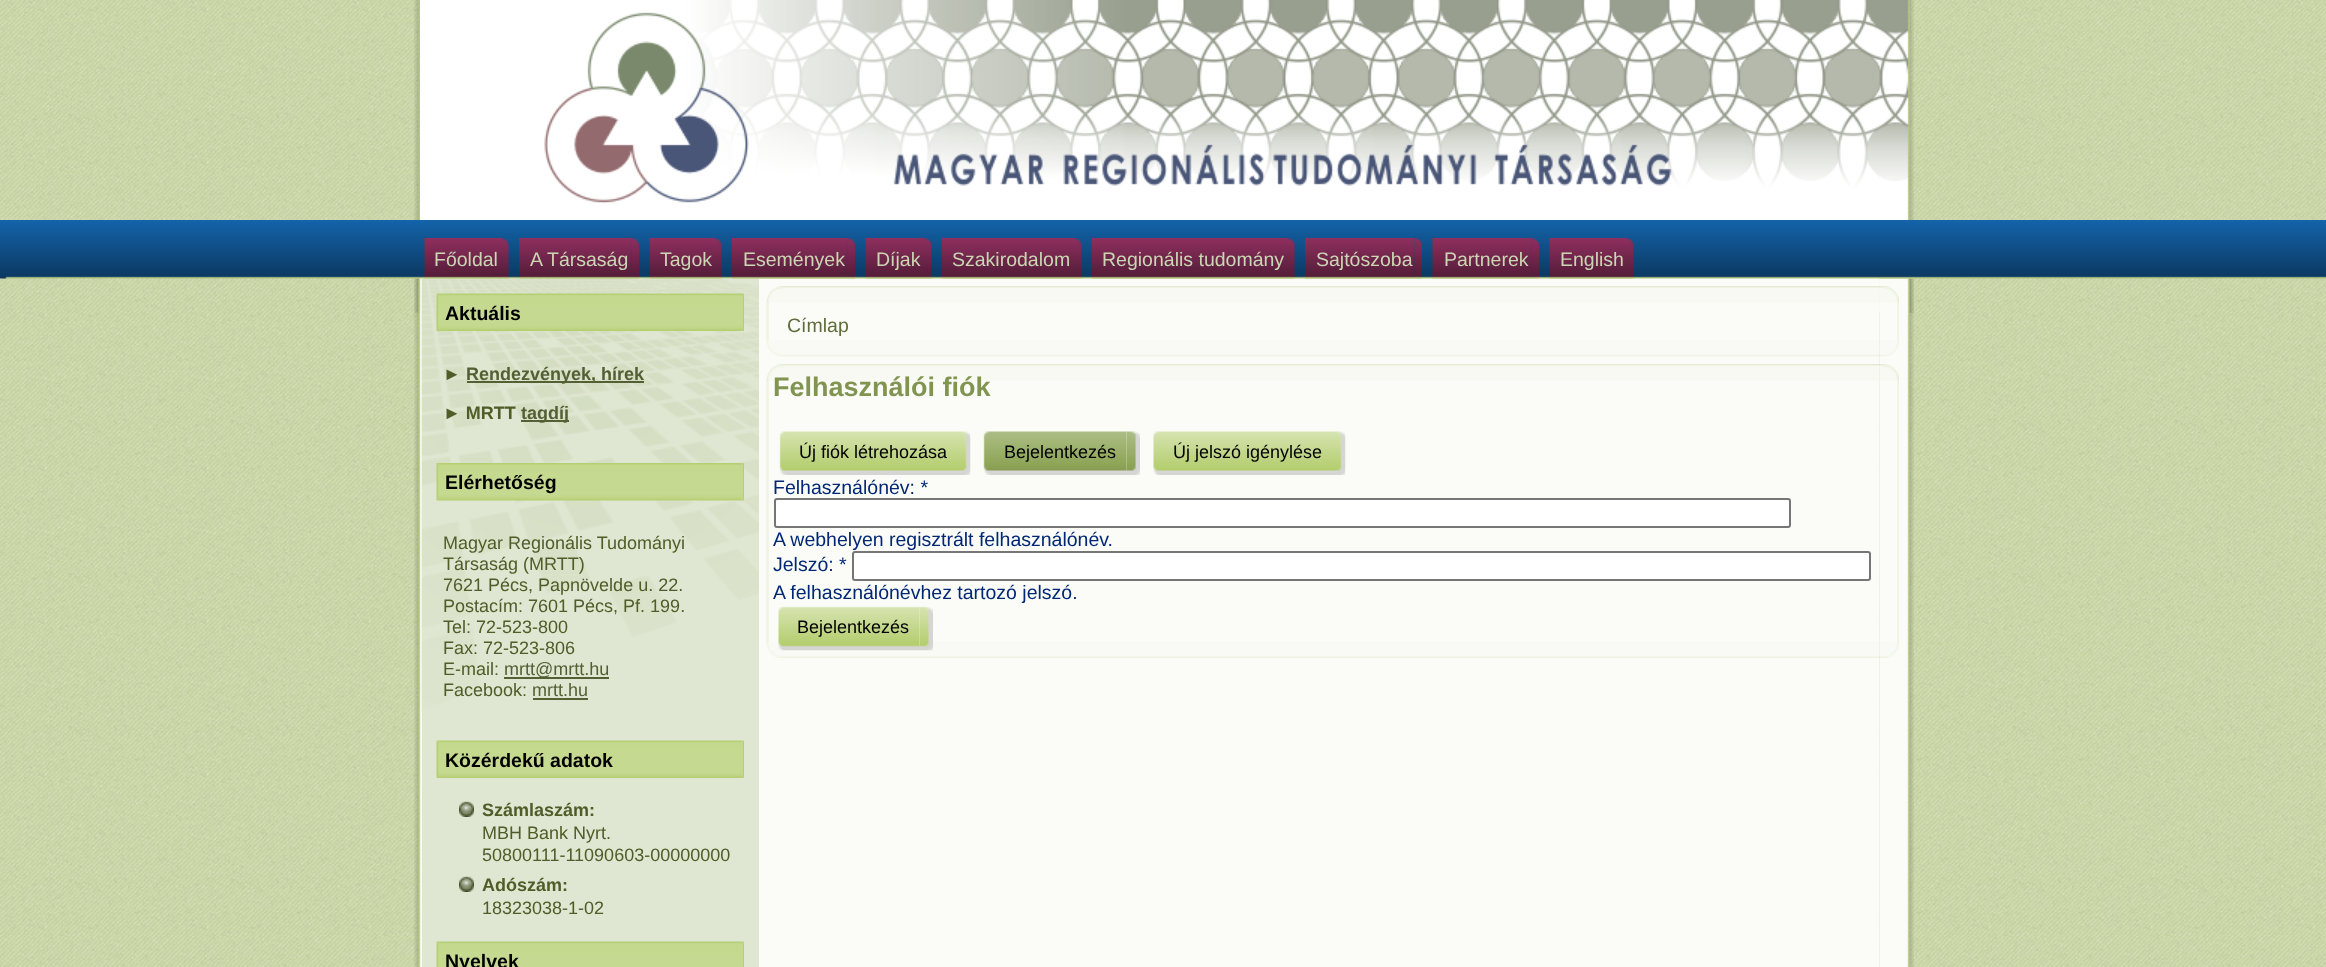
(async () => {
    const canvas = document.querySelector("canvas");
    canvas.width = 2326;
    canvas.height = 967;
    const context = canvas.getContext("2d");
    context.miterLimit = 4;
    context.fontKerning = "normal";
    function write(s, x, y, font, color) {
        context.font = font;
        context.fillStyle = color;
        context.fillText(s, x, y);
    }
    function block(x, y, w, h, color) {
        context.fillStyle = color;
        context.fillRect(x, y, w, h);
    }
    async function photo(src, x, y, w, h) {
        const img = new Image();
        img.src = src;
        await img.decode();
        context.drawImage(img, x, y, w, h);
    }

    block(0, 0, 2326, 967, "rgb(255, 255, 255)");
    await photo("media/1.png", 0, 0, 2326, 967);
    await photo("media/2.png", 414, 0, 1500, 220);
    await photo("media/3.png", 420, 0, 1489, 220);
    await photo("media/22.png", 414, 278, 1466, 35);
    await photo("media/23.png", 414, 278, 1466, 36);
    await photo("media/24.png", 1879, 278, 35, 35);
    await photo("media/25.png", 1879, 278, 35, 35);
    await photo("media/53.png", 414, 313, 1466, 654);
    await photo("media/26.png", 421, 278, 338, 434);
    await photo("media/4.png", 0, 220, 2326, 59);
    await photo("media/5.png", 424, 238, 77, 41);
    await photo("media/6.png", 501, 238, 8, 41);
    write("Főoldal", 434, 266, "19.5px Liberation Sans", "rgb(203, 214, 179)");
    await photo("media/7.png", 519, 238, 113, 41);
    await photo("media/8.png", 631, 238, 8, 41);
    write("A Társaság", 530, 266, "19.5px Liberation Sans", "rgb(203, 214, 179)");
    await photo("media/9.png", 649, 238, 65, 41);
    await photo("media/10.png", 714, 238, 8, 41);
    write("Tagok", 660, 266, "19.5px Liberation Sans", "rgb(203, 214, 179)");
    await photo("media/11.png", 732, 238, 116, 41);
    await photo("media/12.png", 847, 238, 8, 41);
    write("Események", 743, 266, "19.5px Liberation Sans", "rgb(203, 214, 179)");
    await photo("media/13.png", 865, 238, 59, 41);
    await photo("media/14.png", 924, 238, 8, 41);
    write("Díjak", 876, 266, "19.5px Liberation Sans", "rgb(203, 214, 179)");
    await photo("media/15.png", 942, 238, 132, 41);
    await photo("media/16.png", 1074, 238, 8, 41);
    write("Szakirodalom", 952, 266, "19.5px Liberation Sans", "rgb(203, 214, 179)");
    await photo("media/17.png", 1092, 238, 195, 41);
    await photo("media/16.png", 1287, 238, 8, 41);
    write("Regionális tudomány", 1102, 266, "19.5px Liberation Sans", "rgb(203, 214, 179)");
    await photo("media/18.png", 1305, 238, 110, 41);
    await photo("media/19.png", 1414, 238, 8, 41);
    write("Sajtószoba", 1316, 266, "19.5px Liberation Sans", "rgb(203, 214, 179)");
    await photo("media/20.png", 1432, 238, 100, 41);
    await photo("media/12.png", 1531, 238, 8, 41);
    write("Partnerek", 1444, 266, "19.5px Liberation Sans", "rgb(203, 214, 179)");
    await photo("media/21.png", 1549, 238, 77, 41);
    await photo("media/14.png", 1626, 238, 8, 41);
    write("English", 1560, 266, "19.5px Liberation Sans", "rgb(203, 214, 179)");
    block(422, 712, 337, 255, "rgb(223, 230, 209)");
    await photo("media/27.png", 436, 293, 307, 38);
    write("Aktuális", 445, 320, "bold 19.5px Liberation Sans", "rgb(0, 0, 0)");
    await photo("media/28.png", 742, 293, 2, 38);
    write("►", 443, 380, "bold 18px Liberation Sans", "rgb(80, 93, 40)");
    block(467, 381, 177, 2, "rgb(83, 96, 52)");
    write("Rendezvények, hírek", 466, 380, "bold 18px Liberation Sans", "rgb(83, 96, 52)");
    write("► MRTT", 443, 419, "bold 18px Liberation Sans", "rgb(80, 93, 40)");
    block(521, 420, 48, 2, "rgb(83, 96, 52)");
    write("tagdíj", 521, 419, "bold 18px Liberation Sans", "rgb(83, 96, 52)");
    await photo("media/29.png", 436, 463, 307, 38);
    write("Elérhetőség", 445, 489, "bold 19.5px Liberation Sans", "rgb(0, 0, 0)");
    await photo("media/30.png", 742, 463, 2, 38);
    write("Magyar Regionális Tudományi", 443, 549, "18px Liberation Sans", "rgb(80, 93, 40)");
    write("Társaság (MRTT)", 443, 570, "18px Liberation Sans", "rgb(80, 93, 40)");
    write("7621 Pécs, Papnövelde u. 22.", 443, 591, "18px Liberation Sans", "rgb(80, 93, 40)");
    write("Postacím: 7601 Pécs, Pf. 199.", 443, 612, "18px Liberation Sans", "rgb(80, 93, 40)");
    write("Tel: 72-523-800", 443, 633, "18px Liberation Sans", "rgb(80, 93, 40)");
    write("Fax: 72-523-806", 443, 654, "18px Liberation Sans", "rgb(80, 93, 40)");
    write("E-mail:", 443, 675, "18px Liberation Sans", "rgb(80, 93, 40)");
    block(504, 677, 105, 2, "rgb(83, 96, 52)");
    write("mrtt@mrtt.hu", 504, 675, "18px Liberation Sans", "rgb(83, 96, 52)");
    write("Facebook:", 443, 696, "18px Liberation Sans", "rgb(80, 93, 40)");
    write("mrtt.hu", 532, 696, "18px Liberation Sans", "rgb(83, 96, 52)");
    block(533, 698, 55, 2, "rgb(83, 96, 52)");
    await photo("media/31.png", 436, 740, 307, 38);
    write("Közérdekű adatok", 445, 767, "bold 19.5px Liberation Sans", "rgb(0, 0, 0)");
    await photo("media/32.png", 742, 740, 2, 38);
    await photo("media/33.png", 459, 801, 15, 16);
    write("Számlaszám:", 482, 816, "bold 18px Liberation Sans", "rgb(80, 93, 40)");
    write("MBH Bank Nyrt.", 482, 839, "18px Liberation Sans", "rgb(80, 93, 40)");
    write("50800111-11090603-00000000", 482, 861, "18px Liberation Sans", "rgb(80, 93, 40)");
    await photo("media/33.png", 459, 876, 15, 16);
    write("Adószám:", 482, 891, "bold 18px Liberation Sans", "rgb(80, 93, 40)");
    write("18323038-1-02", 482, 914, "18px Liberation Sans", "rgb(80, 93, 40)");
    await photo("media/34.png", 436, 941, 307, 26);
    write("Nyelvek", 445, 968, "bold 19.5px Liberation Sans", "rgb(0, 0, 0)");
    await photo("media/35.png", 742, 941, 2, 26);
    await photo("media/54.png", 1879, 313, 35, 654);
    await photo("media/36.png", 766, 286, 1117, 71);
    await photo("media/37.png", 766, 286, 1117, 17);
    await photo("media/40.png", 1897, 302, 2, 38);
    await photo("media/38.png", 1882, 286, 17, 71);
    await photo("media/39.png", 1882, 286, 17, 17);
    block(766, 302, 3, 38, "rgba(205, 215, 165, 0.2)");
    write("Címlap", 787, 332, "19.5px Liberation Sans", "rgb(94, 109, 59)");
    await photo("media/41.png", 766, 364, 1117, 294);
    await photo("media/42.png", 766, 364, 1117, 17);
    await photo("media/52.png", 1897, 380, 2, 262);
    await photo("media/43.png", 1882, 364, 17, 294);
    await photo("media/39.png", 1882, 364, 17, 17);
    block(766, 380, 3, 262, "rgba(205, 215, 165, 0.2)");
    write("Felhasználói fiók", 773, 396, "bold 27px Liberation Sans", "rgb(129, 149, 80)");
    await photo("media/44.png", 779, 431, 178, 44);
    await photo("media/45.png", 957, 431, 14, 44);
    write("Új fiók létrehozása", 799, 458, "18px Liberation Sans", "rgb(0, 0, 0)");
    await photo("media/46.png", 983, 431, 144, 44);
    await photo("media/47.png", 1126, 431, 14, 44);
    write("Bejelentkezés", 1004, 458, "18px Liberation Sans", "rgb(0, 0, 0)");
    await photo("media/48.png", 1153, 431, 179, 44);
    await photo("media/49.png", 1332, 431, 14, 44);
    write("Új jelszó igénylése", 1173, 458, "18px Liberation Sans", "rgb(0, 0, 0)");
    write("Felhasználónév: *", 773, 494, "19.5px Liberation Sans", "rgb(0, 39, 117)");
    context.fillStyle = "rgb(255, 255, 255)";
    context.beginPath();
    context.roundRect(775, 499, 1015, 28, 2);
    context.fill();
    context.strokeStyle = "rgb(118, 118, 118)";
    context.lineWidth = 2;
    context.stroke();
    write("A webhelyen regisztrált felhasználónév.", 773, 546, "19.5px Liberation Sans", "rgb(0, 39, 117)");
    write("Jelszó: *", 773, 571, "19.5px Liberation Sans", "rgb(0, 39, 117)");
    context.fillStyle = "rgb(255, 255, 255)";
    context.beginPath();
    context.roundRect(853, 552, 1017, 28, 2);
    context.fill();
    context.stroke();
    write("A felhasználónévhez tartozó jelszó.", 773, 599, "19.5px Liberation Sans", "rgb(0, 39, 117)");
    await photo("media/50.png", 778, 606, 142, 45);
    await photo("media/51.png", 919, 606, 14, 45);
    write("Bejelentkezés", 797, 633, "18px Liberation Sans", "rgb(0, 0, 0)");
})();
